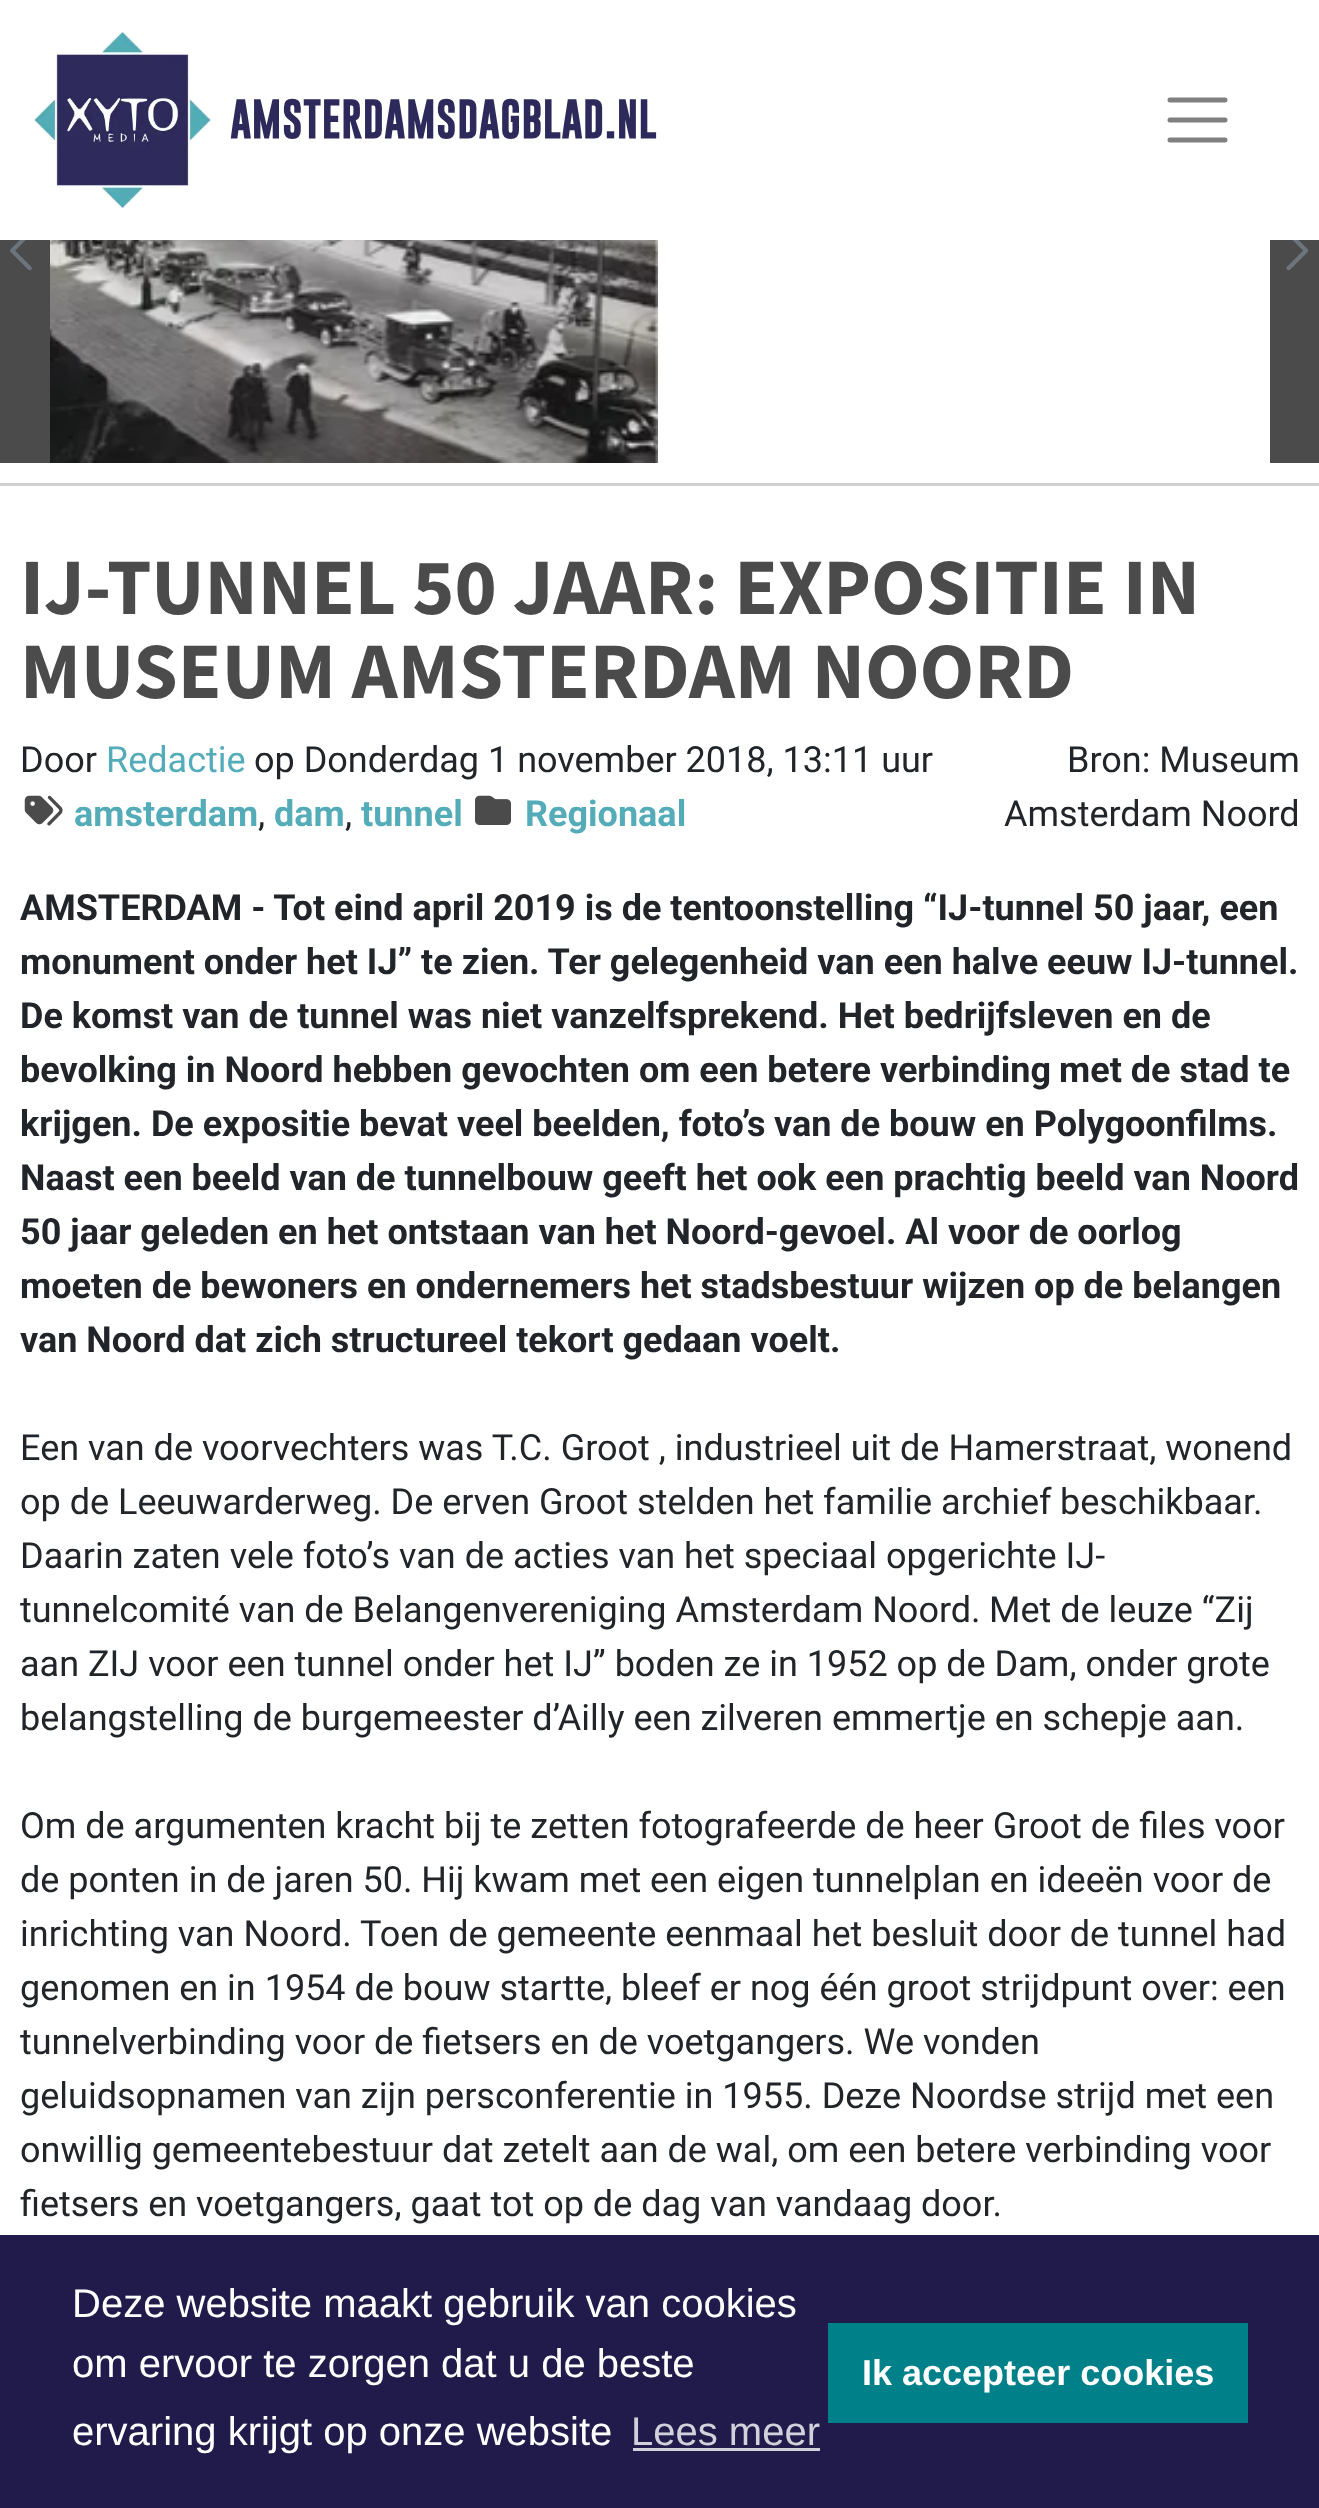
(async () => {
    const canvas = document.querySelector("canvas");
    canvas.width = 1319;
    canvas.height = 2508;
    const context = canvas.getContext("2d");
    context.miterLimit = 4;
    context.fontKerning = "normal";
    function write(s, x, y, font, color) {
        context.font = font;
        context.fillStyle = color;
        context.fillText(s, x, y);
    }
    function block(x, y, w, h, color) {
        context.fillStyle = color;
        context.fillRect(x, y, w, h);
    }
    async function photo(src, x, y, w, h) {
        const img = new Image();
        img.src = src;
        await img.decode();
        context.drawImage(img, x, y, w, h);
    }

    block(0, 0, 1319, 2508, "rgb(255, 255, 255)");
    await photo("media/1.png", 32, 32, 180, 176);
    write("AMSTERDAMSDAGBLAD.NL", 230, 138, "bold 40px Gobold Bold", "rgb(45, 42, 91)");
    context.beginPath();
    context.moveTo(1170, 100);
    context.lineTo(1225, 100);
    context.moveTo(1170, 120);
    context.lineTo(1225, 120);
    context.moveTo(1170, 140);
    context.lineTo(1225, 140);
    context.strokeStyle = "rgb(128, 128, 128)";
    context.lineWidth = 5;
    context.lineCap = "round";
    context.stroke();
    block(0, 483, 1319, 3, "rgb(207, 207, 207)");
    block(0, 240, 50, 223, "rgb(76, 75, 75)");
    await photo("media/2.png", 10, 240, 22, 31);
    await photo("media/3.png", 50, 240, 608, 223);
    block(1270, 240, 49, 223, "rgb(76, 75, 75)");
    await photo("media/4.png", 1286, 240, 23, 31);
    write("IJ-TUNNEL 50 JAAR: EXPOSITIE IN", 20, 614, "bold 80px Source Sans Pro", "rgb(76, 75, 75)");
    write("MUSEUM AMSTERDAM NOORD", 20, 698, "bold 80px Source Sans Pro", "rgb(76, 75, 75)");
    write("Door", 20, 772, "36px Roboto", "rgb(33, 37, 41)");
    write("Redactie", 106, 772, "36px Roboto", "rgb(83, 172, 184)");
    write("op Donderdag 1 november 2018, 13:11 uur", 254, 772, "36px Roboto", "rgb(33, 37, 41)");
    await photo("media/5.png", 24, 795, 39, 31);
    write("amsterdam", 74, 826, "bold 36px Roboto", "rgb(83, 172, 184)");
    write(",", 258, 826, "36px Roboto", "rgb(33, 37, 41)");
    write("dam", 274, 826, "bold 36px Roboto", "rgb(83, 172, 184)");
    write(",", 345, 826, "36px Roboto", "rgb(33, 37, 41)");
    write("tunnel", 361, 826, "bold 36px Roboto", "rgb(83, 172, 184)");
    await photo("media/6.png", 475, 795, 36, 30);
    write("Regionaal", 525, 826, "bold 36px Roboto", "rgb(83, 172, 184)");
    write("Bron: Museum", 1067, 772, "36px Roboto", "rgb(33, 37, 41)");
    write("Amsterdam Noord", 1004, 826, "36px Roboto", "rgb(33, 37, 41)");
    write("AMSTERDAM - Tot eind april 2019 is de tentoonstelling “IJ-tunnel 50 jaar, een", 20, 920, "bold 36px Roboto", "rgb(33, 37, 41)");
    write("monument onder het IJ” te zien. Ter gelegenheid van een halve eeuw IJ-tunnel.", 20, 974, "bold 36px Roboto", "rgb(33, 37, 41)");
    write("De komst van de tunnel was niet vanzelfsprekend. Het bedrijfsleven en de", 20, 1028, "bold 36px Roboto", "rgb(33, 37, 41)");
    write("bevolking in Noord hebben gevochten om een betere verbinding", 20, 1082, "bold 36px Roboto", "rgb(33, 37, 41)");
    write("met de stad te", 1059, 1082, "bold 36px Roboto", "rgb(33, 37, 41)");
    write("krijgen. De expositie bevat veel beelden, foto’s", 20, 1136, "bold 36px Roboto", "rgb(33, 37, 41)");
    write("van de bouw en Polygoonfilms.", 774, 1136, "bold 36px Roboto", "rgb(33, 37, 41)");
    write("Naast een beeld van de tunnelbouw geeft het ook een prachtig beeld van Noord", 20, 1190, "bold 36px Roboto", "rgb(33, 37, 41)");
    write("50 jaar geleden en het ontstaan van het Noord-gevoel. Al voor de oorlog", 20, 1244, "bold 36px Roboto", "rgb(33, 37, 41)");
    write("moeten de bewoners en ondernemers het stadsbestuur wijzen op de belangen", 20, 1298, "bold 36px Roboto", "rgb(33, 37, 41)");
    write("van Noord dat zich structureel tekort gedaan voelt.", 20, 1352, "bold 36px Roboto", "rgb(33, 37, 41)");
    write("Een van de voorvechters was T.C. Groot , industrieel uit de Hamerstraat, wonend", 20, 1460, "36px Roboto", "rgb(33, 37, 41)");
    write("op de Leeuwarderweg. De erven Groot stelden het familie archief", 20, 1514, "36px Roboto", "rgb(33, 37, 41)");
    write("beschikbaar.", 1060, 1514, "36px Roboto", "rgb(33, 37, 41)");
    write("Daarin zaten vele foto’s van de acties van het speciaal opgerichte IJ-", 20, 1568, "36px Roboto", "rgb(33, 37, 41)");
    write("tunnelcomité van de Belangenvereniging Amsterdam Noord.", 20, 1622, "36px Roboto", "rgb(33, 37, 41)");
    write("Met de leuze “Zij", 989, 1622, "36px Roboto", "rgb(33, 37, 41)");
    write("aan ZIJ voor een tunnel onder het IJ” boden ze in 1952 op de Dam, onder grote", 20, 1676, "36px Roboto", "rgb(33, 37, 41)");
    write("belangstelling de burgemeester d’Ailly een zilveren emmertje en schepje aan.", 20, 1730, "36px Roboto", "rgb(33, 37, 41)");
    write("Om de argumenten kracht bij te zetten fotografeerde de heer Groot de files voor", 20, 1838, "36px Roboto", "rgb(33, 37, 41)");
    write("de ponten in de jaren 50. Hij kwam met een eigen tunnelplan en ideeën voor de", 20, 1892, "36px Roboto", "rgb(33, 37, 41)");
    write("inrichting van Noord.", 20, 1946, "36px Roboto", "rgb(33, 37, 41)");
    write("Toen de gemeente eenmaal het besluit door de tunnel had", 360, 1946, "36px Roboto", "rgb(33, 37, 41)");
    write("genomen en in 1954 de bouw startte, bleef er nog één groot strijdpunt over: een", 20, 2000, "36px Roboto", "rgb(33, 37, 41)");
    write("tunnelverbinding voor de fietsers en de voetgangers. We vonden", 20, 2054, "36px Roboto", "rgb(33, 37, 41)");
    write("geluidsopnamen van zijn persconferentie in 1955. Deze Noordse strijd met een", 20, 2108, "36px Roboto", "rgb(33, 37, 41)");
    write("onwillig gemeentebestuur dat zetelt aan de wal, om een betere verbinding voor", 20, 2162, "36px Roboto", "rgb(33, 37, 41)");
    write("fietsers en voetgangers, gaat tot op de dag van vandaag door.", 20, 2216, "36px Roboto", "rgb(33, 37, 41)");
    block(0, 2235, 1319, 273, "rgb(32, 27, 74)");
    write("Deze website maakt gebruik van cookies", 72, 2317, "40px Liberation Sans", "rgb(255, 255, 255)");
    write("om ervoor te zorgen dat u de beste", 72, 2377, "40px Liberation Sans", "rgb(255, 255, 255)");
    write("ervaring krijgt op onze website", 72, 2445, "40px Liberation Sans", "rgb(255, 255, 255)");
    write("Lees meer", 631, 2445, "40px Liberation Sans", "rgb(210, 209, 219)");
    block(633, 2448, 187, 3, "rgb(210, 209, 219)");
    block(828, 2323, 420, 100, "rgb(0, 129, 138)");
    write("Ik accepteer cookies", 862, 2385, "bold 36px Liberation Sans", "rgb(255, 255, 255)");
})();
